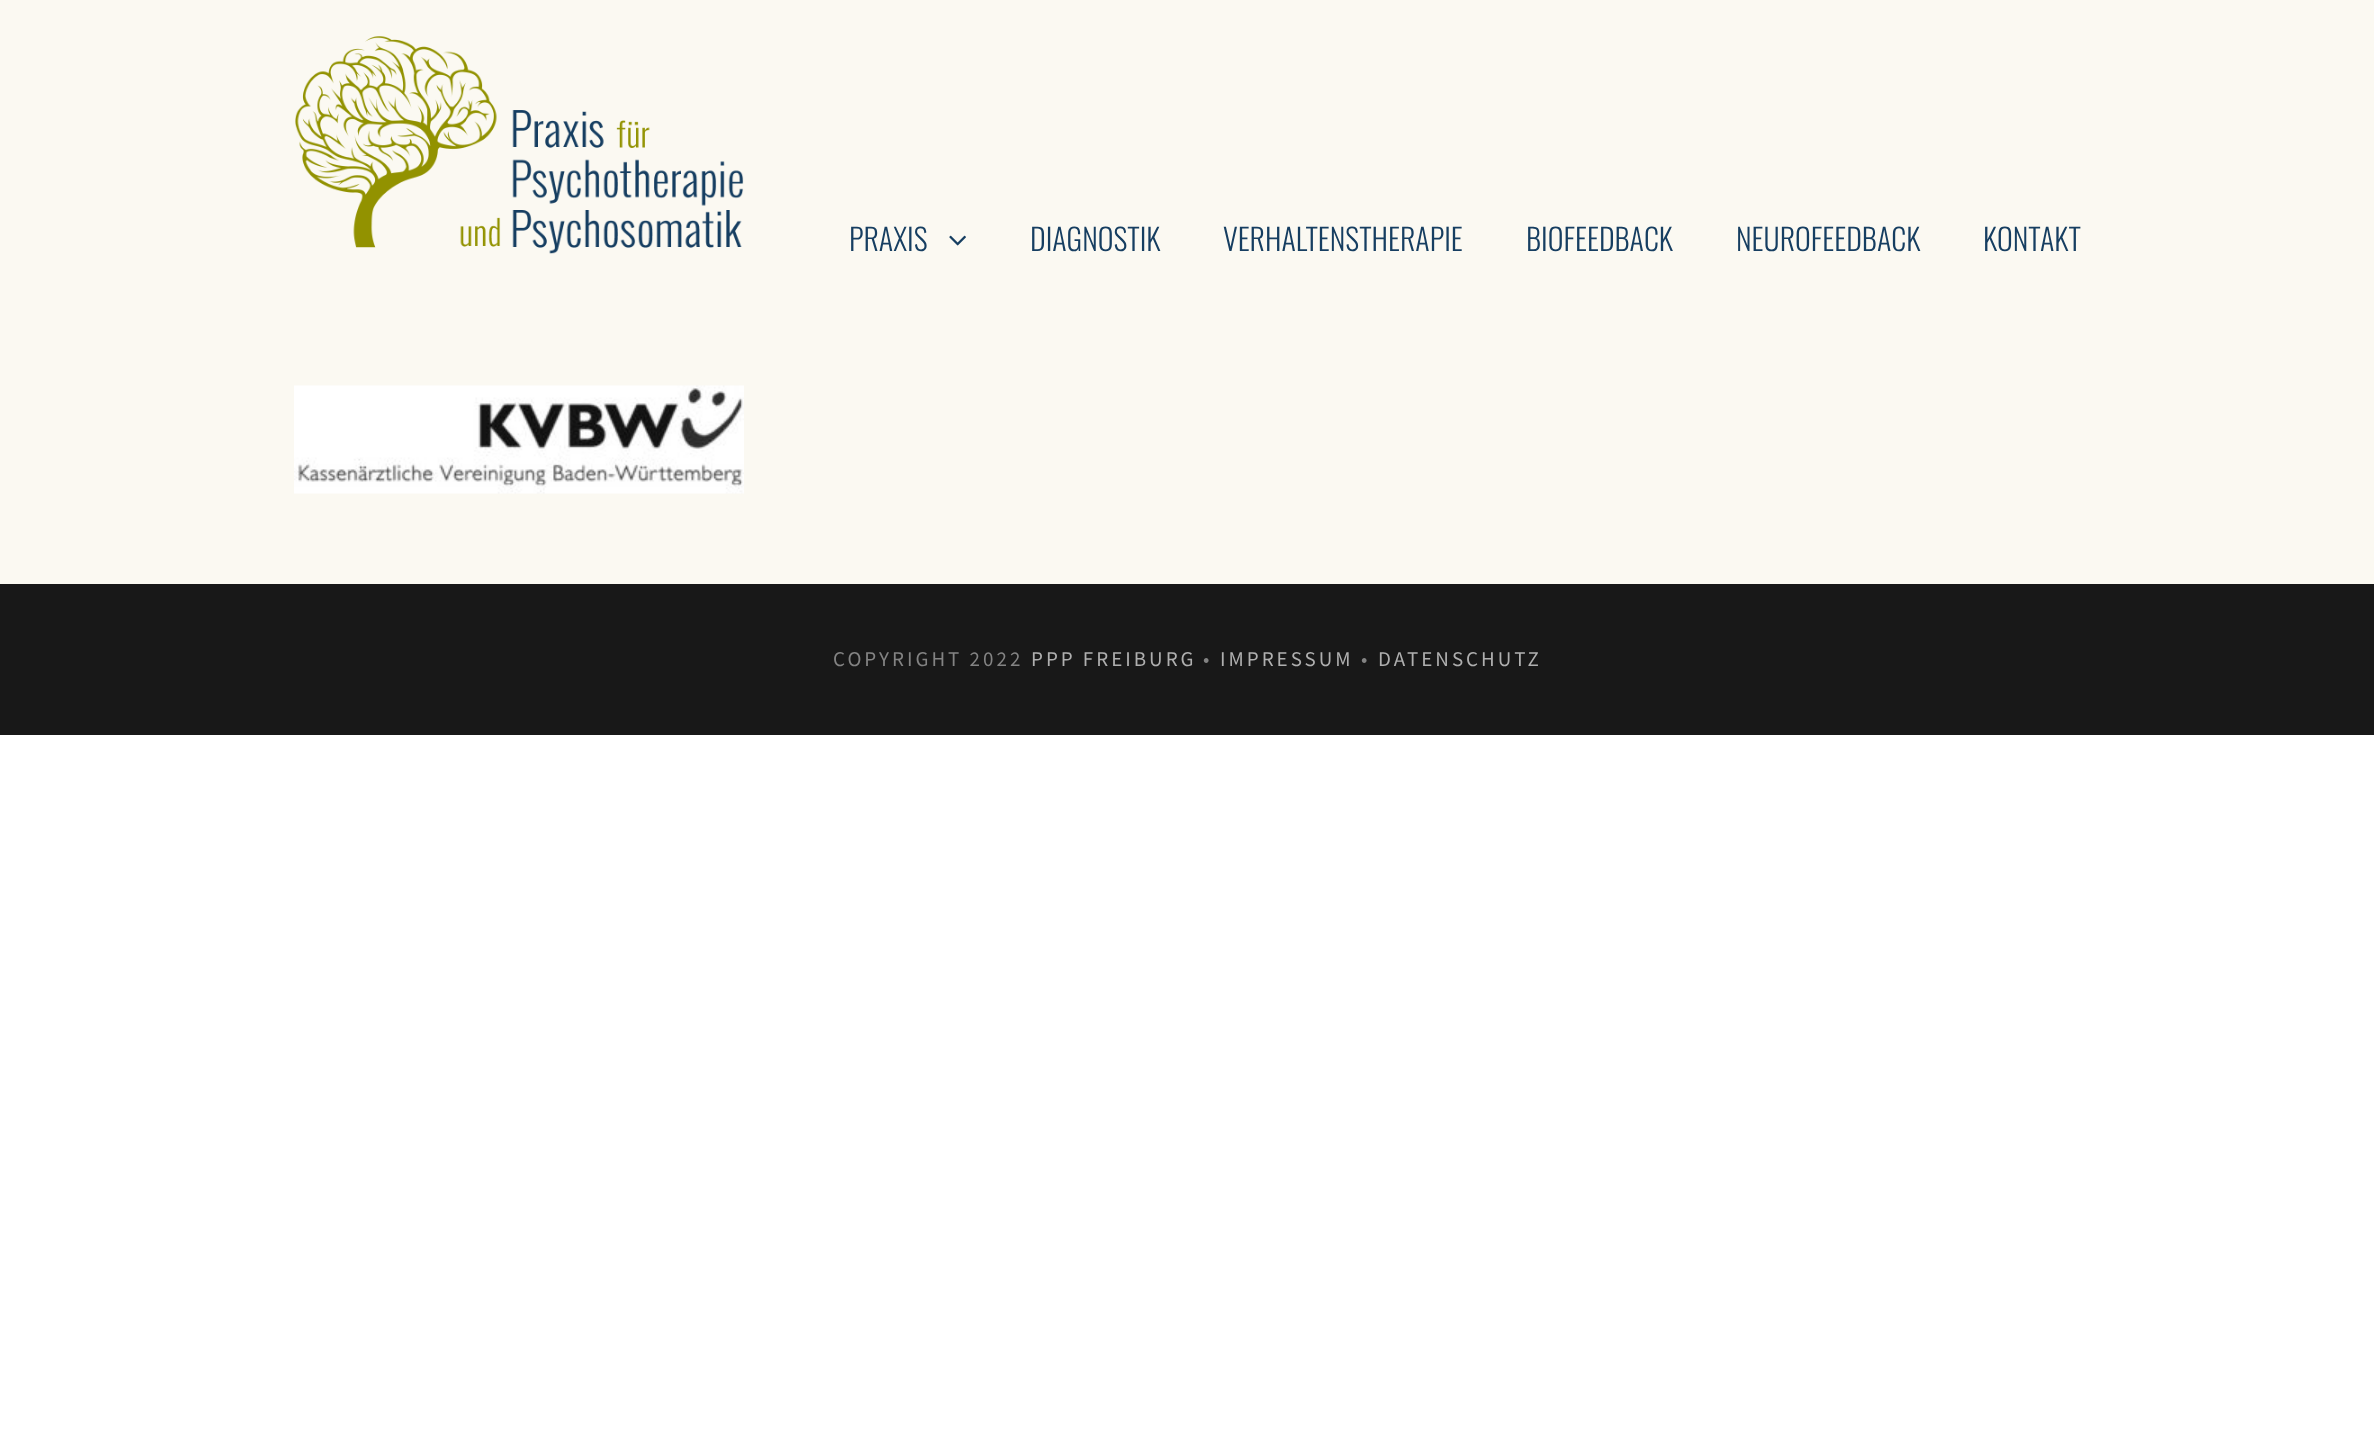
(async () => {
    const canvas = document.querySelector("canvas");
    canvas.width = 2374;
    canvas.height = 1445;
    const context = canvas.getContext("2d");
    context.miterLimit = 4;
    context.fontKerning = "normal";
    function write(s, x, y, font, color) {
        context.font = font;
        context.fillStyle = color;
        context.fillText(s, x, y);
    }
    function block(x, y, w, h, color) {
        context.fillStyle = color;
        context.fillRect(x, y, w, h);
    }
    async function photo(src, x, y, w, h) {
        const img = new Image();
        img.src = src;
        await img.decode();
        context.drawImage(img, x, y, w, h);
    }

    block(0, 0, 2374, 1445, "rgb(255, 255, 255)");
    block(0, 0, 2374, 584, "rgb(251, 249, 242)");
    await photo("media/1.png", 295, 36, 449, 218);
    write("PRAXIS", 849, 251, "300 30px Oswald", "rgb(22, 62, 97)");
    await photo("media/2.png", 949, 235, 17, 11);
    write("DIAGNOSTIK", 1030, 251, "300 30px Oswald", "rgb(22, 62, 97)");
    write("VERHALTENSTHERAPIE", 1223, 251, "300 30px Oswald", "rgb(22, 62, 97)");
    write("BIOFEEDBACK", 1526, 251, "300 30px Oswald", "rgb(22, 62, 97)");
    write("NEUROFEEDBACK", 1736, 251, "300 30px Oswald", "rgb(22, 62, 97)");
    write("KONTAKT", 1983, 251, "300 30px Oswald", "rgb(22, 62, 97)");
    await photo("media/3.png", 294, 385, 450, 109);
    block(0, 584, 2374, 151, "rgb(24, 24, 24)");
    context.letterSpacing = "3px";
    write("COPYRIGHT 2022", 833, 666, "21px Source Sans Pro", "rgb(131, 131, 131)");
    write("PPP FREIBURG", 1031, 666, "21px Source Sans Pro", "rgb(175, 175, 175)");
    write("•", 1203, 666, "21px Source Sans Pro", "rgb(131, 131, 131)");
    write("IMPRESSUM", 1220, 666, "21px Source Sans Pro", "rgb(175, 175, 175)");
    write("•", 1361, 666, "21px Source Sans Pro", "rgb(131, 131, 131)");
    write("DATENSCHUTZ", 1378, 666, "21px Source Sans Pro", "rgb(175, 175, 175)");
})();
